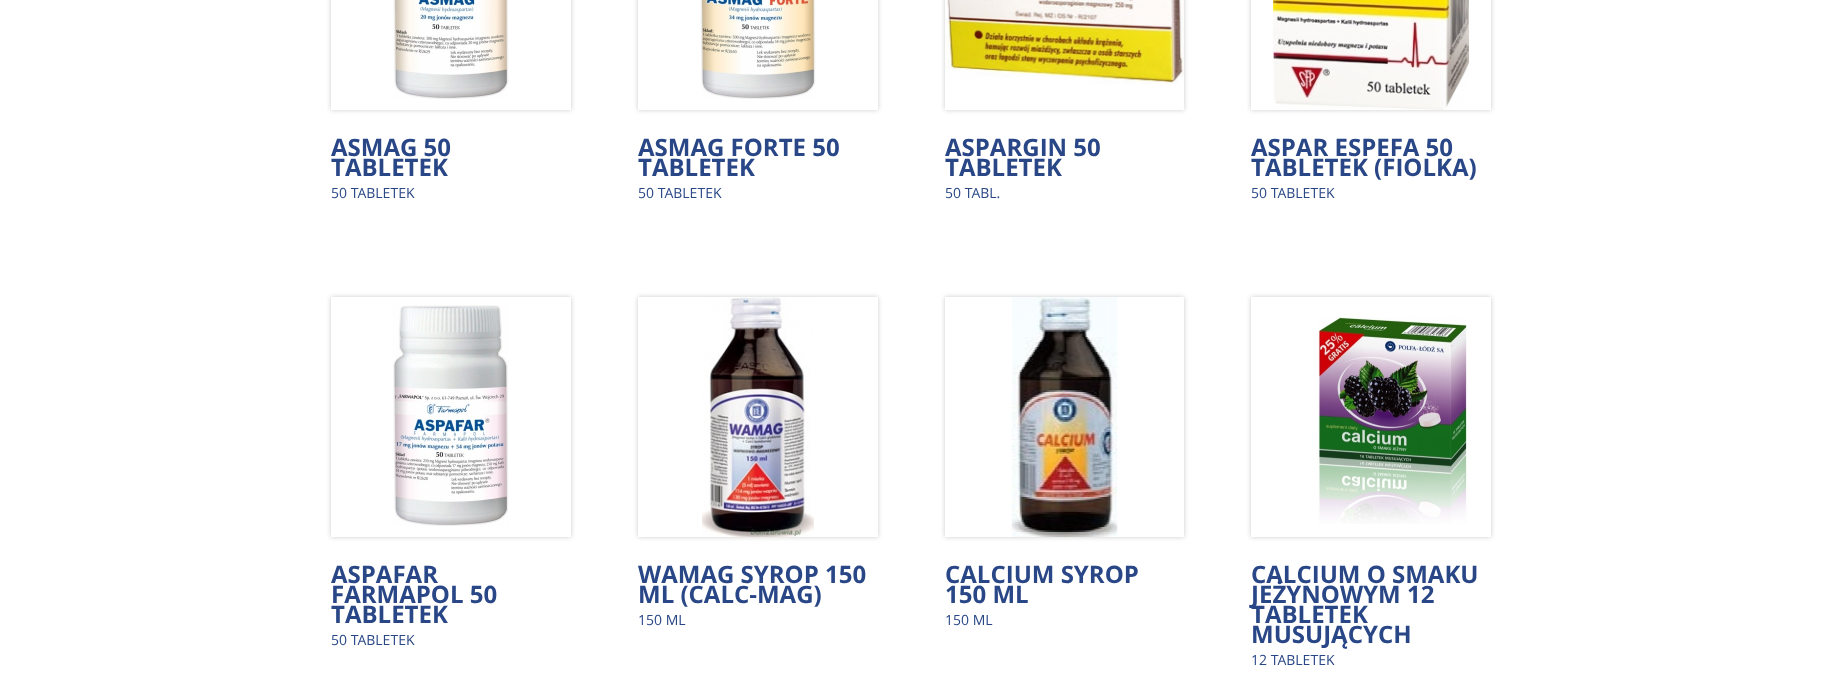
(async () => {
    const canvas = document.querySelector("canvas");
    canvas.width = 1822;
    canvas.height = 677;
    const context = canvas.getContext("2d");
    context.miterLimit = 4;
    context.fontKerning = "normal";
    function write(s, x, y, font, color) {
        context.font = font;
        context.fillStyle = color;
        context.fillText(s, x, y);
    }
    function block(x, y, w, h, color) {
        context.fillStyle = color;
        context.fillRect(x, y, w, h);
    }
    async function photo(src, x, y, w, h) {
        const img = new Image();
        img.src = src;
        await img.decode();
        context.drawImage(img, x, y, w, h);
    }

    block(0, 0, 1822, 677, "rgb(255, 255, 255)");
    context.save();
    context.beginPath();
    context.moveTo(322, 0);
    context.lineTo(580, 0);
    context.lineTo(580, 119);
    context.lineTo(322, 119);
    context.closePath();
    context.moveTo(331, -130);
    context.lineTo(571, -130);
    context.lineTo(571, 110);
    context.lineTo(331, 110);
    context.closePath();
    context.clip("evenodd");
    context.fillStyle = "rgb(204, 204, 204)";
    context.filter = "blur(2.5px)";
    context.beginPath();
    context.rect(331, -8, 240, 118);
    context.fill();
    context.filter = "none";
    context.restore();
    await photo("media/1.png", 393, 0, 116, 99);
    write("ASMAG 50", 331, 156, "bold 24px Open Sans", "rgb(41, 71, 135)");
    write("TABLETEK", 331, 176, "bold 24px Open Sans", "rgb(41, 71, 135)");
    write("50 TABLETEK", 331, 198, "14px Open Sans", "rgb(41, 71, 135)");
    context.save();
    context.beginPath();
    context.moveTo(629, 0);
    context.lineTo(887, 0);
    context.lineTo(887, 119);
    context.lineTo(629, 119);
    context.closePath();
    context.moveTo(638, -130);
    context.lineTo(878, -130);
    context.lineTo(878, 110);
    context.lineTo(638, 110);
    context.closePath();
    context.clip("evenodd");
    context.fillStyle = "rgb(204, 204, 204)";
    context.filter = "blur(2.5px)";
    context.beginPath();
    context.rect(638, -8, 240, 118);
    context.fill();
    context.filter = "none";
    context.restore();
    await photo("media/2.png", 700, 0, 116, 99);
    write("ASMAG FORTE 50", 638, 156, "bold 24px Open Sans", "rgb(41, 71, 135)");
    write("TABLETEK", 638, 176, "bold 24px Open Sans", "rgb(41, 71, 135)");
    write("50 TABLETEK", 638, 198, "14px Open Sans", "rgb(41, 71, 135)");
    context.save();
    context.beginPath();
    context.moveTo(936, 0);
    context.lineTo(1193, 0);
    context.lineTo(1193, 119);
    context.lineTo(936, 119);
    context.closePath();
    context.moveTo(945, -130);
    context.lineTo(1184, -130);
    context.lineTo(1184, 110);
    context.lineTo(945, 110);
    context.closePath();
    context.clip("evenodd");
    context.fillStyle = "rgb(204, 204, 204)";
    context.filter = "blur(2.5px)";
    context.beginPath();
    context.rect(945, -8, 239, 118);
    context.fill();
    context.filter = "none";
    context.restore();
    await photo("media/3.png", 945, 0, 239, 84);
    write("ASPARGIN 50", 945, 156, "bold 24px Open Sans", "rgb(41, 71, 135)");
    write("TABLETEK", 945, 176, "bold 24px Open Sans", "rgb(41, 71, 135)");
    write("50 TABL.", 945, 198, "14px Open Sans", "rgb(41, 71, 135)");
    context.save();
    context.beginPath();
    context.moveTo(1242, 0);
    context.lineTo(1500, 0);
    context.lineTo(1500, 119);
    context.lineTo(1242, 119);
    context.closePath();
    context.moveTo(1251, -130);
    context.lineTo(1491, -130);
    context.lineTo(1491, 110);
    context.lineTo(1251, 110);
    context.closePath();
    context.clip("evenodd");
    context.fillStyle = "rgb(204, 204, 204)";
    context.filter = "blur(2.5px)";
    context.beginPath();
    context.rect(1251, -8, 240, 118);
    context.fill();
    context.filter = "none";
    context.restore();
    await photo("media/4.png", 1273, 0, 196, 110);
    write("ASPAR ESPEFA 50", 1251, 156, "bold 24px Open Sans", "rgb(41, 71, 135)");
    write("TABLETEK (FIOLKA)", 1251, 176, "bold 24px Open Sans", "rgb(41, 71, 135)");
    write("50 TABLETEK", 1251, 198, "14px Open Sans", "rgb(41, 71, 135)");
    context.save();
    context.beginPath();
    context.moveTo(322, 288);
    context.lineTo(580, 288);
    context.lineTo(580, 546);
    context.lineTo(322, 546);
    context.closePath();
    context.moveTo(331, 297);
    context.lineTo(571, 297);
    context.lineTo(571, 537);
    context.lineTo(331, 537);
    context.closePath();
    context.clip("evenodd");
    context.fillStyle = "rgb(204, 204, 204)";
    context.filter = "blur(2.5px)";
    context.beginPath();
    context.rect(331, 297, 240, 240);
    context.fill();
    context.filter = "none";
    context.restore();
    await photo("media/5.png", 393, 305, 116, 221);
    write("ASPAFAR", 331, 583, "bold 24px Open Sans", "rgb(41, 71, 135)");
    write("FARMAPOL 50", 331, 603, "bold 24px Open Sans", "rgb(41, 71, 135)");
    write("TABLETEK", 331, 623, "bold 24px Open Sans", "rgb(41, 71, 135)");
    write("50 TABLETEK", 331, 645, "14px Open Sans", "rgb(41, 71, 135)");
    context.save();
    context.beginPath();
    context.moveTo(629, 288);
    context.lineTo(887, 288);
    context.lineTo(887, 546);
    context.lineTo(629, 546);
    context.closePath();
    context.moveTo(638, 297);
    context.lineTo(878, 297);
    context.lineTo(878, 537);
    context.lineTo(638, 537);
    context.closePath();
    context.clip("evenodd");
    context.fillStyle = "rgb(204, 204, 204)";
    context.filter = "blur(2.5px)";
    context.beginPath();
    context.rect(638, 297, 240, 240);
    context.fill();
    context.filter = "none";
    context.restore();
    await photo("media/6.png", 702, 297, 112, 240);
    write("WAMAG SYROP 150", 638, 583, "bold 24px Open Sans", "rgb(41, 71, 135)");
    write("ML (CALC-MAG)", 638, 603, "bold 24px Open Sans", "rgb(41, 71, 135)");
    write("150 ML", 638, 625, "14px Open Sans", "rgb(41, 71, 135)");
    context.save();
    context.beginPath();
    context.moveTo(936, 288);
    context.lineTo(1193, 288);
    context.lineTo(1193, 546);
    context.lineTo(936, 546);
    context.closePath();
    context.moveTo(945, 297);
    context.lineTo(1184, 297);
    context.lineTo(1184, 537);
    context.lineTo(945, 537);
    context.closePath();
    context.clip("evenodd");
    context.fillStyle = "rgb(204, 204, 204)";
    context.filter = "blur(2.5px)";
    context.beginPath();
    context.rect(945, 297, 239, 240);
    context.fill();
    context.filter = "none";
    context.restore();
    await photo("media/7.png", 1011, 297, 107, 240);
    write("CALCIUM SYROP", 945, 583, "bold 24px Open Sans", "rgb(41, 71, 135)");
    write("150 ML", 945, 603, "bold 24px Open Sans", "rgb(41, 71, 135)");
    write("150 ML", 945, 625, "14px Open Sans", "rgb(41, 71, 135)");
    context.save();
    context.beginPath();
    context.moveTo(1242, 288);
    context.lineTo(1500, 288);
    context.lineTo(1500, 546);
    context.lineTo(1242, 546);
    context.closePath();
    context.moveTo(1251, 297);
    context.lineTo(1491, 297);
    context.lineTo(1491, 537);
    context.lineTo(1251, 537);
    context.closePath();
    context.clip("evenodd");
    context.fillStyle = "rgb(204, 204, 204)";
    context.filter = "blur(2.5px)";
    context.beginPath();
    context.rect(1251, 297, 240, 240);
    context.fill();
    context.filter = "none";
    context.restore();
    await photo("media/8.png", 1318, 317, 150, 207);
    write("CALCIUM O SMAKU", 1251, 583, "bold 24px Open Sans", "rgb(41, 71, 135)");
    write("JEŻYNOWYM 12", 1251, 603, "bold 24px Open Sans", "rgb(41, 71, 135)");
    write("TABLETEK", 1251, 623, "bold 24px Open Sans", "rgb(41, 71, 135)");
    write("MUSUJĄCYCH", 1251, 643, "bold 24px Open Sans", "rgb(41, 71, 135)");
    write("12 TABLETEK", 1251, 665, "14px Open Sans", "rgb(41, 71, 135)");
})();
